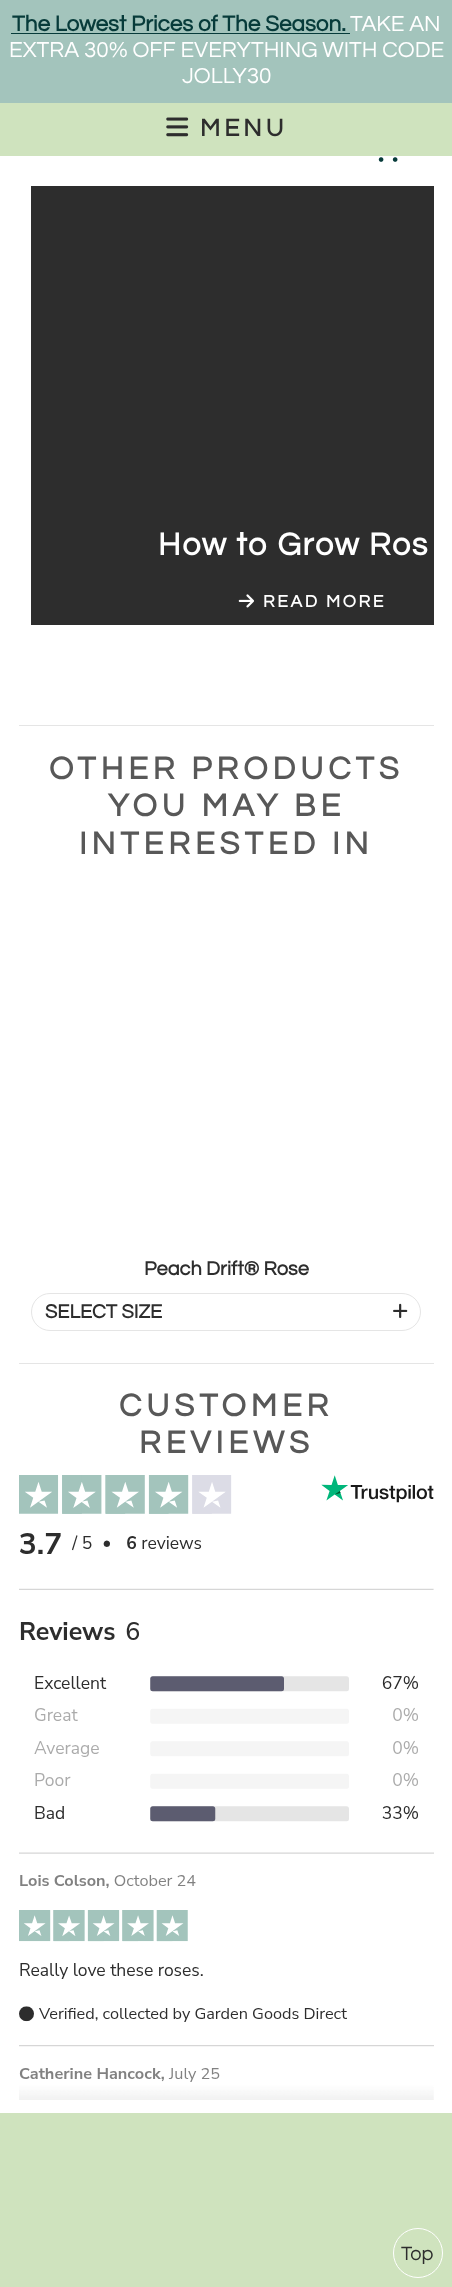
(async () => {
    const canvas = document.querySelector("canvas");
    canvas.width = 452;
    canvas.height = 2287;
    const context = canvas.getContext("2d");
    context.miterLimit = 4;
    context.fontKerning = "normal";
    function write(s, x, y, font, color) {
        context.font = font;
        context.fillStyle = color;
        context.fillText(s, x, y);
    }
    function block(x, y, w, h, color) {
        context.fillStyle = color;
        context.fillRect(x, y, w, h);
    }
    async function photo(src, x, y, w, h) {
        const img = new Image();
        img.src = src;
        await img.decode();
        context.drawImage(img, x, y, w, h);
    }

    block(0, 0, 452, 2287, "rgb(255, 255, 255)");
    block(0, 0, 452, 103, "rgb(163, 196, 188)");
    write("The Lowest Prices of The Season.", 12, 31, "bold 22.5px Questrial", "rgb(7, 59, 58)");
    block(11, 33, 339, 1, "rgb(7, 59, 58)");
    write("TAKE AN", 350, 31, "22.5px Questrial", "rgb(255, 255, 255)");
    write("EXTRA 30% OFF EVERYTHING WITH CODE", 9, 57, "22.5px Questrial", "rgb(255, 255, 255)");
    write("JOLLY30", 182, 83, "22.5px Questrial", "rgb(255, 255, 255)");
    block(0, 103, 452, 53, "rgb(207, 227, 190)");
    await photo("media/1.png", 166, 117, 23, 20);
    context.letterSpacing = "4px";
    write("MENU", 200, 136, "bold 25px Questrial", "rgb(45, 45, 45)");
    await photo("media/2.png", 378, 157, 20, 5);
    block(31, 186, 403, 439, "rgb(45, 45, 45)");
    context.letterSpacing = "1.6px";
    write("How to Grow Ros", 158, 555, "bold 32.5px Questrial", "rgb(255, 255, 255)");
    await photo("media/3.png", 238, 594, 16, 14);
    context.letterSpacing = "2.6px";
    write("READ MORE", 263, 607, "bold 17.5px Questrial", "rgb(255, 255, 255)");
    block(19, 725, 415, 1, "rgb(229, 229, 229)");
    context.letterSpacing = "4.9px";
    write("OTHER PRODUCTS", 49, 779, "bold 32.5px Questrial", "rgb(88, 88, 88)");
    write("YOU MAY BE", 108, 816, "bold 32.5px Questrial", "rgb(88, 88, 88)");
    write("INTERESTED IN", 79, 854, "bold 32.5px Questrial", "rgb(88, 88, 88)");
    context.letterSpacing = "0px";
    write("Peach Drift® Rose", 144, 1275, "bold 20px Questrial", "rgb(45, 45, 45)");
    context.beginPath();
    context.roundRect(31.5, 1293.5, 389, 37, 18.5);
    context.strokeStyle = "rgb(229, 229, 229)";
    context.stroke();
    write("SELECT SIZE", 45, 1318, "bold 20px Questrial", "rgb(45, 45, 45)");
    await photo("media/4.png", 393, 1303, 15, 15);
    block(19, 1363, 415, 1, "rgb(229, 229, 229)");
    context.letterSpacing = "4.9px";
    write("CUSTOMER", 119, 1416, "bold 32.5px Questrial", "rgb(88, 88, 88)");
    write("REVIEWS", 139, 1453, "bold 32.5px Questrial", "rgb(88, 88, 88)");
    await photo("media/5.png", 19, 1475, 415, 625);
    block(0, 2113, 452, 174, "rgb(207, 227, 190)");
    context.beginPath();
    context.arc(418, 2253, 24.5, 0, Math.PI * 2);
    context.strokeStyle = "rgb(255, 255, 255)";
    context.stroke();
    context.letterSpacing = "0px";
    write("Top", 401, 2260, "20px Questrial", "rgb(45, 45, 45)");
})();
